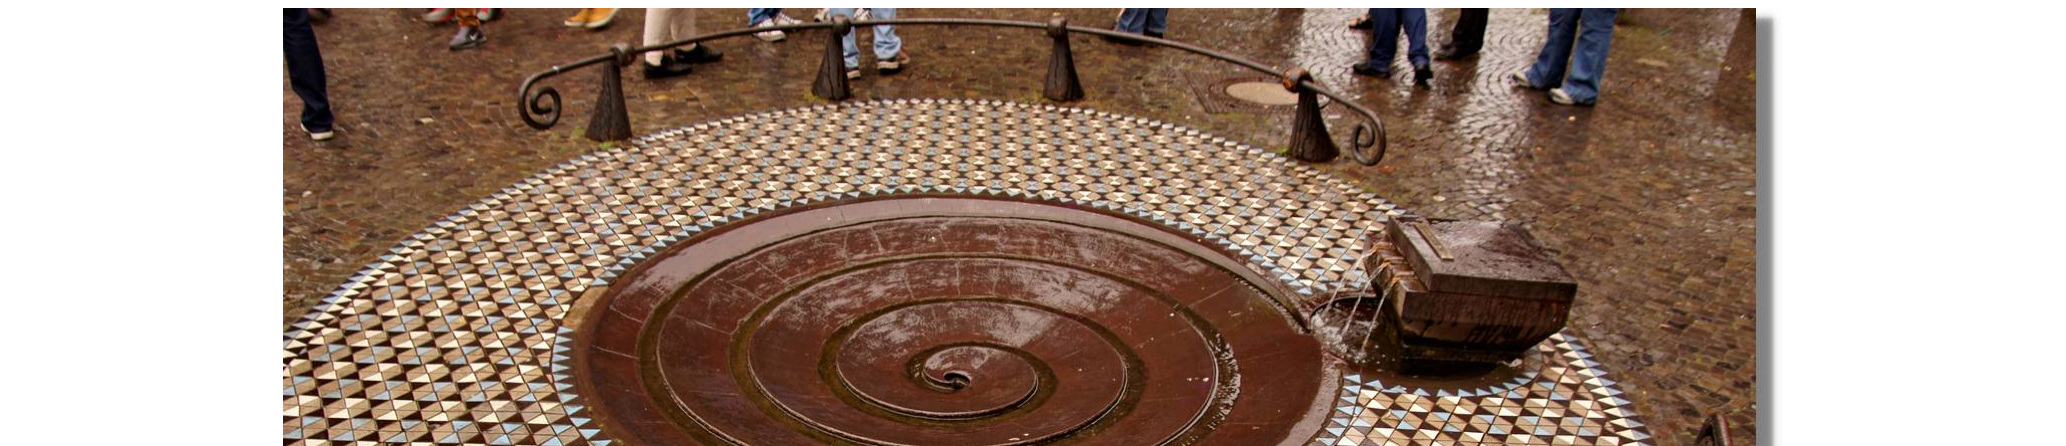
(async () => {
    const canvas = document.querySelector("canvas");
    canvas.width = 2066;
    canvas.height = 446;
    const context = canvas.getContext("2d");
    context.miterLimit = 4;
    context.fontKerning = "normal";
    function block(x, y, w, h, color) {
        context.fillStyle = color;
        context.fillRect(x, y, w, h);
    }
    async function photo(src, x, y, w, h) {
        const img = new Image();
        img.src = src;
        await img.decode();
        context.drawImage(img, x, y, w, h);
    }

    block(0, 0, 2066, 446, "rgb(255, 255, 255)");
    await photo("media/1.png", 283, 8, 1499, 438);
})();
